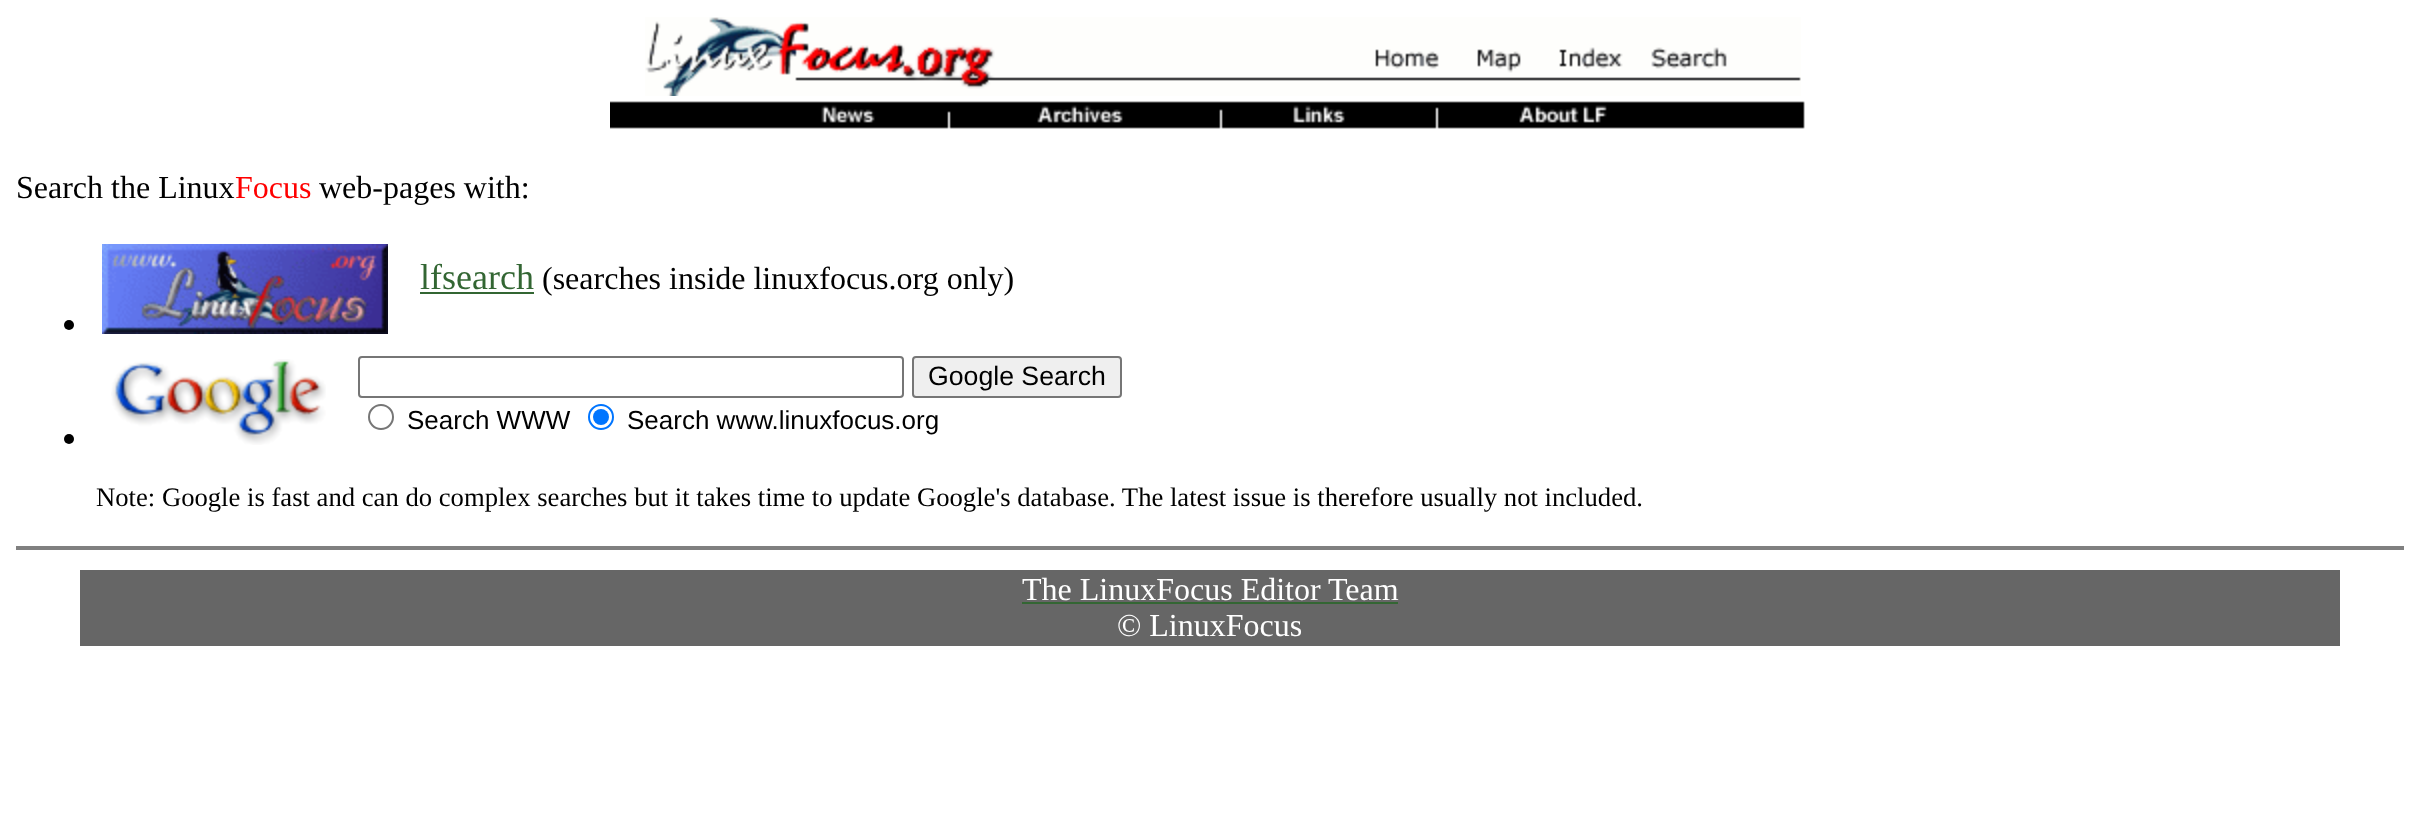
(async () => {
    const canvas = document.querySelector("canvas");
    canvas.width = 2419;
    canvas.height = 817;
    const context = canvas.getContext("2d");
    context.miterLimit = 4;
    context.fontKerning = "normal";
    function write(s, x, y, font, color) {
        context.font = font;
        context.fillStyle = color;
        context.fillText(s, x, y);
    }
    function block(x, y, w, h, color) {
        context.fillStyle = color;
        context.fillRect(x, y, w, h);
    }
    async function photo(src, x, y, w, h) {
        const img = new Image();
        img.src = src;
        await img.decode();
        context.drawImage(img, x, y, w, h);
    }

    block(0, 0, 2419, 817, "rgb(255, 255, 255)");
    await photo("media/1.png", 645, 17, 1156, 79);
    await photo("media/2.png", 610, 101, 1195, 28);
    write("Search the Linux", 16, 198, "32px Liberation Serif", "rgb(0, 0, 0)");
    write("Focus", 235, 198, "32px Liberation Serif", "rgb(255, 0, 0)");
    write("web-pages with:", 319, 198, "32px Liberation Serif", "rgb(0, 0, 0)");
    await photo("media/3.png", 102, 244, 286, 90);
    write("lfsearch", 420, 289, "36px Liberation Serif", "rgb(51, 102, 51)");
    block(420, 292, 114, 2, "rgb(51, 102, 51)");
    write("(searches inside linuxfocus.org only)", 542, 289, "32px Liberation Serif", "rgb(0, 0, 0)");
    context.beginPath();
    context.arc(69, 325, 5, 0, Math.PI * 2);
    context.fill();
    await photo("media/4.png", 111, 359, 215, 86);
    context.beginPath();
    context.roundRect(359, 357, 544, 40, 3);
    context.strokeStyle = "rgb(118, 118, 118)";
    context.lineWidth = 2;
    context.stroke();
    context.fillStyle = "rgb(239, 239, 239)";
    context.beginPath();
    context.roundRect(913, 357, 208, 40, 3);
    context.fill();
    context.stroke();
    write("Google Search", 928, 385, "26.67px Liberation Sans", "rgb(0, 0, 0)");
    context.beginPath();
    context.arc(381, 417, 12, 0, Math.PI * 2);
    context.stroke();
    write("Search WWW", 407, 429, "26px Liberation Sans", "rgb(0, 0, 0)");
    context.beginPath();
    context.arc(601, 417, 12, 0, Math.PI * 2);
    context.strokeStyle = "rgb(0, 117, 255)";
    context.stroke();
    context.fillStyle = "rgb(0, 117, 255)";
    context.beginPath();
    context.arc(601, 417, 8, 0, Math.PI * 2);
    context.fill();
    write("Search www.linuxfocus.org", 627, 429, "26px Liberation Sans", "rgb(0, 0, 0)");
    context.beginPath();
    context.arc(69, 439, 5, 0, Math.PI * 2);
    context.fill();
    write("Note: Google is fast and can do complex searches but it takes time to update Google's database. The latest issue is therefore usually not included.", 96, 506, "26.67px Liberation Serif", "rgb(0, 0, 0)");
    block(16, 546, 2388, 4, "rgb(128, 128, 128)");
    block(80, 570, 2260, 76, "rgb(102, 102, 102)");
    write("The LinuxFocus Editor Team", 1022, 600, "32px Liberation Serif", "rgb(255, 255, 255)");
    block(1022, 602, 376, 2, "rgb(51, 102, 51)");
    write("© LinuxFocus", 1117, 636, "32px Liberation Serif", "rgb(255, 255, 255)");
})();
